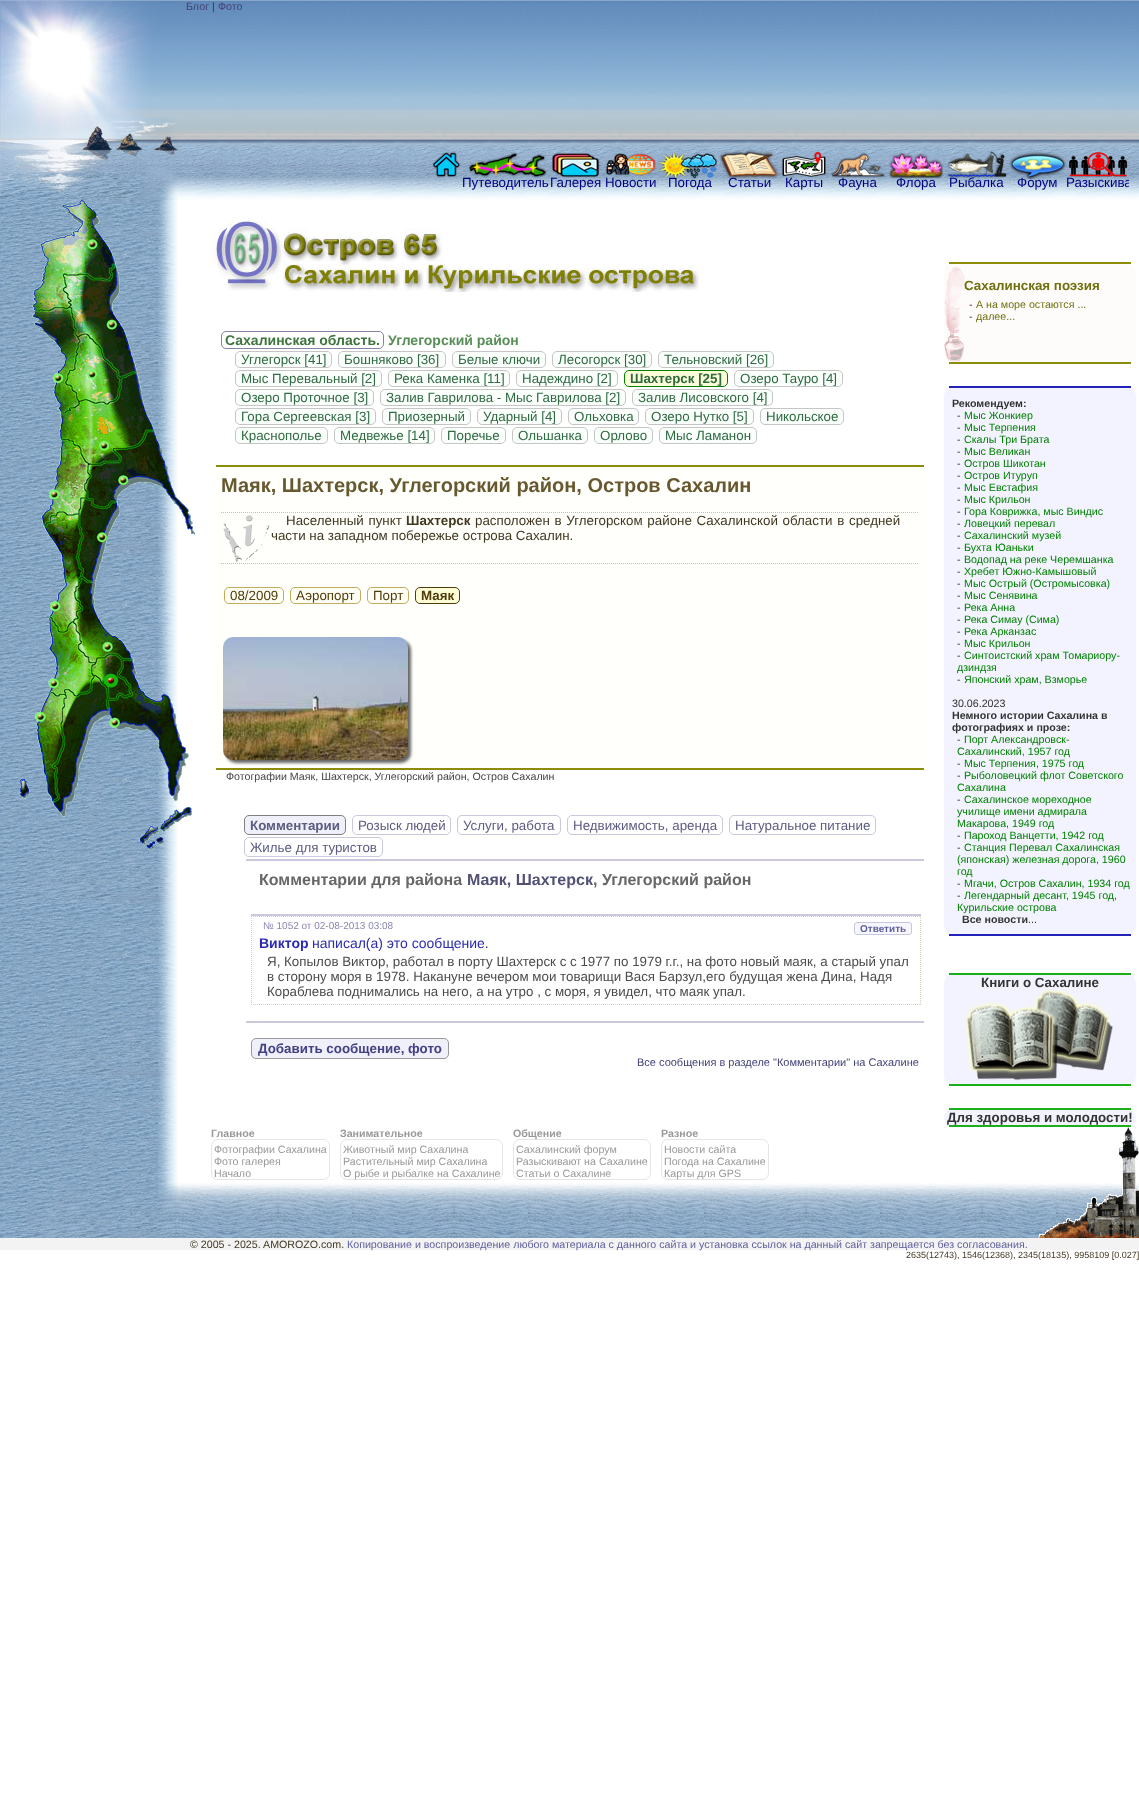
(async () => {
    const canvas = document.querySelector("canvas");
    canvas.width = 1139;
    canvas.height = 1820;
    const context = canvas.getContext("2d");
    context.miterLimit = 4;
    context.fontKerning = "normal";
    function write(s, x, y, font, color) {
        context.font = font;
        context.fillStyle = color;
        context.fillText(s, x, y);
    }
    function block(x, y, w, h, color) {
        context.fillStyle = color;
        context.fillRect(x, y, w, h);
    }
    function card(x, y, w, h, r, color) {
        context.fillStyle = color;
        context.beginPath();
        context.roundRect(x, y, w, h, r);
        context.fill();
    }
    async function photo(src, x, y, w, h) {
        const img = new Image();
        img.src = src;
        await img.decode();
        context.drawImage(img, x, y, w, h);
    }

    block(0, 0, 1139, 1820, "rgb(255, 255, 255)");
    await photo("media/1.png", 178, 0, 961, 200);
    await photo("media/2.png", 0, 0, 178, 200);
    write("Блог", 186, 10, "10.67px Liberation Sans", "rgb(66, 66, 120)");
    write("|", 212, 10, "10.67px Liberation Sans", "rgb(65, 56, 34)");
    write("Фото", 218, 10, "10.67px Liberation Sans", "rgb(66, 66, 120)");
    await photo("media/3.png", 432, 150, 696, 29);
    write("Путеводитель", 462, 187, "13.35px Liberation Sans", "rgb(0, 0, 128)");
    write("Галерея Новости", 550, 187, "13.35px Liberation Sans", "rgb(0, 0, 128)");
    write("Погода", 668, 187, "13.35px Liberation Sans", "rgb(0, 0, 128)");
    write("Статьи", 728, 187, "13.35px Liberation Sans", "rgb(0, 0, 128)");
    write("Карты", 785, 187, "13.35px Liberation Sans", "rgb(0, 0, 128)");
    write("Фауна", 838, 187, "13.35px Liberation Sans", "rgb(0, 0, 128)");
    write("Флора", 896, 187, "13.35px Liberation Sans", "rgb(0, 0, 128)");
    write("Рыбалка", 949, 187, "13.35px Liberation Sans", "rgb(0, 0, 128)");
    write("Форум", 1017, 187, "13.35px Liberation Sans", "rgb(0, 0, 128)");
    context.save();
    context.beginPath();
    context.rect(1066, 150, 63, 40);
    context.clip();
    write("Разыскива", 1066, 187, "13.35px Liberation Sans", "rgb(0, 0, 128)");
    context.restore();
    await photo("media/4.png", 0, 200, 178, 927);
    await photo("media/5.png", 20, 200, 175, 650);
    await photo("media/6.png", 211, 220, 488, 72);
    context.beginPath();
    context.roundRect(221.5, 331.5, 162, 17, 4.5);
    context.strokeStyle = "rgb(132, 132, 170)";
    context.stroke();
    write("Сахалинская область.", 225, 345, "bold 14px Liberation Sans", "rgb(61, 117, 61)");
    write("Углегорский район", 388, 345, "bold 14px Liberation Sans", "rgb(87, 142, 87)");
    context.fillStyle = "rgb(251, 255, 251)";
    context.beginPath();
    context.roundRect(235.5, 351.5, 96, 16, 4.5);
    context.fill();
    context.strokeStyle = "rgb(197, 197, 197)";
    context.stroke();
    write("Углегорск [41]", 241, 364, "13.35px Liberation Sans", "rgb(46, 106, 66)");
    context.fillStyle = "rgb(251, 255, 251)";
    context.beginPath();
    context.roundRect(338.5, 351.5, 107, 16, 4.5);
    context.fill();
    context.stroke();
    write("Бошняково [36]", 344, 364, "13.35px Liberation Sans", "rgb(46, 106, 66)");
    context.fillStyle = "rgb(251, 255, 251)";
    context.beginPath();
    context.roundRect(452.5, 351.5, 93, 16, 4.5);
    context.fill();
    context.stroke();
    write("Белые ключи", 458, 364, "13.35px Liberation Sans", "rgb(46, 106, 66)");
    context.fillStyle = "rgb(251, 255, 251)";
    context.beginPath();
    context.roundRect(552.5, 351.5, 99, 16, 4.5);
    context.fill();
    context.stroke();
    write("Лесогорск [30]", 558, 364, "13.35px Liberation Sans", "rgb(46, 106, 66)");
    context.fillStyle = "rgb(251, 255, 251)";
    context.beginPath();
    context.roundRect(658.5, 351.5, 115, 16, 4.5);
    context.fill();
    context.stroke();
    write("Тельновский [26]", 664, 364, "13.35px Liberation Sans", "rgb(46, 106, 66)");
    context.fillStyle = "rgb(251, 255, 251)";
    context.beginPath();
    context.roundRect(235.5, 370.5, 146, 16, 4.5);
    context.fill();
    context.stroke();
    write("Мыс Перевальный [2]", 241, 383, "13.35px Liberation Sans", "rgb(46, 106, 66)");
    context.fillStyle = "rgb(251, 255, 251)";
    context.beginPath();
    context.roundRect(388.5, 370.5, 121, 16, 4.5);
    context.fill();
    context.stroke();
    write("Река Каменка [11]", 394, 383, "13.35px Liberation Sans", "rgb(46, 106, 66)");
    context.fillStyle = "rgb(251, 255, 251)";
    context.beginPath();
    context.roundRect(516.5, 370.5, 101, 16, 4.5);
    context.fill();
    context.stroke();
    write("Надеждино [2]", 522, 383, "13.35px Liberation Sans", "rgb(46, 106, 66)");
    context.fillStyle = "rgb(252, 252, 215)";
    context.beginPath();
    context.roundRect(624.5, 370.5, 103, 16, 4.5);
    context.fill();
    context.strokeStyle = "rgb(0, 128, 0)";
    context.stroke();
    write("Шахтерск [25]", 630, 383, "bold 13.35px Liberation Sans", "rgb(46, 106, 66)");
    context.fillStyle = "rgb(251, 255, 251)";
    context.beginPath();
    context.roundRect(734.5, 370.5, 108, 16, 4.5);
    context.fill();
    context.strokeStyle = "rgb(197, 197, 197)";
    context.stroke();
    write("Озеро Тауро [4]", 740, 383, "13.35px Liberation Sans", "rgb(46, 106, 66)");
    context.fillStyle = "rgb(251, 255, 251)";
    context.beginPath();
    context.roundRect(235.5, 389.5, 138, 16, 4.5);
    context.fill();
    context.stroke();
    write("Озеро Проточное [3]", 241, 402, "13.35px Liberation Sans", "rgb(46, 106, 66)");
    context.fillStyle = "rgb(251, 255, 251)";
    context.beginPath();
    context.roundRect(380.5, 389.5, 245, 16, 4.5);
    context.fill();
    context.stroke();
    write("Залив Гаврилова - Мыс Гаврилова [2]", 386, 402, "13.35px Liberation Sans", "rgb(46, 106, 66)");
    context.fillStyle = "rgb(251, 255, 251)";
    context.beginPath();
    context.roundRect(632.5, 389.5, 140, 16, 4.5);
    context.fill();
    context.stroke();
    write("Залив Лисовского [4]", 638, 402, "13.35px Liberation Sans", "rgb(46, 106, 66)");
    context.fillStyle = "rgb(251, 255, 251)";
    context.beginPath();
    context.roundRect(235.5, 408.5, 140, 16, 4.5);
    context.fill();
    context.stroke();
    write("Гора Сергеевская [3]", 241, 421, "13.35px Liberation Sans", "rgb(46, 106, 66)");
    context.fillStyle = "rgb(251, 255, 251)";
    context.beginPath();
    context.roundRect(382.5, 408.5, 88, 16, 4.5);
    context.fill();
    context.stroke();
    write("Приозерный", 388, 421, "13.35px Liberation Sans", "rgb(46, 106, 66)");
    context.fillStyle = "rgb(251, 255, 251)";
    context.beginPath();
    context.roundRect(477.5, 408.5, 84, 16, 4.5);
    context.fill();
    context.stroke();
    write("Ударный [4]", 483, 421, "13.35px Liberation Sans", "rgb(46, 106, 66)");
    context.fillStyle = "rgb(251, 255, 251)";
    context.beginPath();
    context.roundRect(568.5, 408.5, 70, 16, 4.5);
    context.fill();
    context.stroke();
    write("Ольховка", 574, 421, "13.35px Liberation Sans", "rgb(46, 106, 66)");
    context.fillStyle = "rgb(251, 255, 251)";
    context.beginPath();
    context.roundRect(645.5, 408.5, 108, 16, 4.5);
    context.fill();
    context.stroke();
    write("Озеро Нутко [5]", 651, 421, "13.35px Liberation Sans", "rgb(46, 106, 66)");
    context.fillStyle = "rgb(251, 255, 251)";
    context.beginPath();
    context.roundRect(760.5, 408.5, 83, 16, 4.5);
    context.fill();
    context.stroke();
    write("Никольское", 766, 421, "13.35px Liberation Sans", "rgb(46, 106, 66)");
    context.fillStyle = "rgb(251, 255, 251)";
    context.beginPath();
    context.roundRect(235.5, 427.5, 92, 16, 4.5);
    context.fill();
    context.stroke();
    write("Краснополье", 241, 440, "13.35px Liberation Sans", "rgb(46, 106, 66)");
    context.fillStyle = "rgb(251, 255, 251)";
    context.beginPath();
    context.roundRect(334.5, 427.5, 100, 16, 4.5);
    context.fill();
    context.stroke();
    write("Медвежье [14]", 340, 440, "13.35px Liberation Sans", "rgb(46, 106, 66)");
    context.fillStyle = "rgb(251, 255, 251)";
    context.beginPath();
    context.roundRect(441.5, 427.5, 64, 16, 4.5);
    context.fill();
    context.stroke();
    write("Поречье", 447, 440, "13.35px Liberation Sans", "rgb(46, 106, 66)");
    context.fillStyle = "rgb(251, 255, 251)";
    context.beginPath();
    context.roundRect(512.5, 427.5, 75, 16, 4.5);
    context.fill();
    context.stroke();
    write("Ольшанка", 518, 440, "13.35px Liberation Sans", "rgb(46, 106, 66)");
    context.fillStyle = "rgb(251, 255, 251)";
    context.beginPath();
    context.roundRect(594.5, 427.5, 58, 16, 4.5);
    context.fill();
    context.stroke();
    write("Орлово", 600, 440, "13.35px Liberation Sans", "rgb(46, 106, 66)");
    context.fillStyle = "rgb(251, 255, 251)";
    context.beginPath();
    context.roundRect(659.5, 427.5, 97, 16, 4.5);
    context.fill();
    context.stroke();
    write("Мыс Ламанон", 665, 440, "13.35px Liberation Sans", "rgb(46, 106, 66)");
    card(211, 465, 718, 305, 10, "rgb(255, 255, 251)");
    block(216, 465, 708, 2, "rgb(139, 140, 10)");
    block(216, 768, 708, 2, "rgb(139, 140, 10)");
    write("Маяк, Шахтерск, Углегорский район, Остров Сахалин", 221, 492, "bold 20px Liberation Sans", "rgb(104, 88, 48)");
    await photo("media/7.png", 223, 515, 47, 47);
    context.beginPath();
    context.moveTo(221, 512.5);
    context.lineTo(919, 512.5);
    context.strokeStyle = "rgb(191, 191, 191)";
    context.setLineDash([1, 1]);
    context.stroke();
    context.beginPath();
    context.moveTo(221, 563.5);
    context.lineTo(919, 563.5);
    context.stroke();
    context.wordSpacing = "1px";
    write("Населенный пункт", 286, 525, "13.35px Liberation Sans", "rgb(65, 56, 34)");
    context.wordSpacing = "0px";
    write("Шахтерск", 406, 525, "bold 13.35px Liberation Sans", "rgb(65, 56, 34)");
    context.wordSpacing = "1px";
    write("расположен в Углегорском районе Сахалинской области в средней", 475, 525, "13.35px Liberation Sans", "rgb(65, 56, 34)");
    context.wordSpacing = "0px";
    write("части на западном побережье острова Сахалин.", 271, 540, "13.35px Liberation Sans", "rgb(65, 56, 34)");
    context.fillStyle = "rgb(255, 255, 245)";
    context.beginPath();
    context.roundRect(224.5, 587.5, 59, 16, 4.5);
    context.fill();
    context.strokeStyle = "rgb(195, 171, 92)";
    context.setLineDash([]);
    context.stroke();
    write("08/2009", 230, 600, "13.35px Liberation Sans", "rgb(81, 61, 12)");
    context.fillStyle = "rgb(255, 255, 245)";
    context.beginPath();
    context.roundRect(290.5, 587.5, 70, 16, 4.5);
    context.fill();
    context.stroke();
    write("Аэропорт", 296, 600, "13.35px Liberation Sans", "rgb(81, 61, 12)");
    context.fillStyle = "rgb(255, 255, 245)";
    context.beginPath();
    context.roundRect(367.5, 587.5, 41, 16, 4.5);
    context.fill();
    context.stroke();
    write("Порт", 373, 600, "13.35px Liberation Sans", "rgb(81, 61, 12)");
    context.fillStyle = "rgb(252, 252, 215)";
    context.beginPath();
    context.roundRect(415.5, 587.5, 44, 16, 4.5);
    context.fill();
    context.strokeStyle = "rgb(81, 61, 12)";
    context.stroke();
    write("Маяк", 421, 600, "bold 13.35px Liberation Sans", "rgb(81, 61, 12)");
    context.fillStyle = "rgb(102, 102, 102)";
    context.filter = "blur(1.5px)";
    context.beginPath();
    context.roundRect(226, 640, 185, 123, 10);
    context.fill();
    context.filter = "none";
    await photo("media/8.png", 223, 637, 185, 123);
    write("Фотографии Маяк, Шахтерск, Углегорский район, Остров Сахалин", 226, 780, "10.67px Liberation Sans", "rgb(72, 67, 67)");
    context.fillStyle = "rgb(240, 240, 250)";
    context.beginPath();
    context.roundRect(244.5, 815.5, 101, 19, 4.5);
    context.fill();
    context.strokeStyle = "rgb(127, 127, 127)";
    context.stroke();
    write("Комментарии", 250, 830, "bold 13.35px Liberation Sans", "rgb(92, 92, 130)");
    context.beginPath();
    context.roundRect(352.5, 815.5, 98, 19, 4.5);
    context.strokeStyle = "rgb(201, 200, 221)";
    context.stroke();
    write("Розыск людей", 358, 830, "13.35px Liberation Sans", "rgb(92, 92, 130)");
    context.beginPath();
    context.roundRect(457.5, 815.5, 103, 19, 4.5);
    context.stroke();
    write("Услуги, работа", 463, 830, "13.35px Liberation Sans", "rgb(92, 92, 130)");
    context.beginPath();
    context.roundRect(567.5, 815.5, 155, 19, 4.5);
    context.stroke();
    write("Недвижимость, аренда", 573, 830, "13.35px Liberation Sans", "rgb(92, 92, 130)");
    context.beginPath();
    context.roundRect(729.5, 815.5, 146, 19, 4.5);
    context.stroke();
    write("Натуральное питание", 735, 830, "13.35px Liberation Sans", "rgb(92, 92, 130)");
    context.beginPath();
    context.roundRect(244.5, 837.5, 138, 19, 4.5);
    context.stroke();
    write("Жилье для туристов", 250, 852, "13.35px Liberation Sans", "rgb(92, 92, 130)");
    block(246, 859, 678, 2, "rgb(201, 200, 221)");
    block(246, 1021, 678, 2, "rgb(201, 200, 221)");
    write("Комментарии для района", 259, 885, "bold 16px Liberation Sans", "rgb(103, 103, 103)");
    write("Маяк, Шахтерск", 467, 885, "bold 16px Liberation Sans", "rgb(81, 81, 118)");
    write(", Углегорский район", 593, 885, "bold 16px Liberation Sans", "rgb(103, 103, 103)");
    block(251, 914, 670, 2, "rgb(201, 200, 221)");
    context.beginPath();
    context.moveTo(251, 916.5);
    context.lineTo(921, 916.5);
    context.strokeStyle = "rgb(210, 210, 189)";
    context.setLineDash([1, 1]);
    context.stroke();
    context.beginPath();
    context.moveTo(920.5, 916);
    context.lineTo(920.5, 1005);
    context.stroke();
    context.beginPath();
    context.moveTo(251, 1004.5);
    context.lineTo(921, 1004.5);
    context.stroke();
    context.beginPath();
    context.moveTo(251.5, 916);
    context.lineTo(251.5, 1005);
    context.stroke();
    write("№ 1052 от 02-08-2013 03:08", 263, 929, "10px Liberation Sans", "rgb(136, 134, 176)");
    context.fillStyle = "rgb(247, 247, 254)";
    context.beginPath();
    context.roundRect(854.5, 922.5, 57, 12, 2.5);
    context.fill();
    context.strokeStyle = "rgb(198, 198, 227)";
    context.setLineDash([]);
    context.stroke();
    write("Ответить", 860, 932, "bold 10px Liberation Sans", "rgb(95, 95, 158)");
    write("Виктор", 259, 948, "bold 14px Liberation Sans", "rgb(43, 43, 177)");
    write("написал(а) это сообщение.", 312, 948, "14px Liberation Sans", "rgb(43, 43, 177)");
    write("Я, Копылов Виктор, работал в порту Шахтерск с с 1977 по 1979 г.г., на фото новый маяк, а старый упал", 267, 966, "13.35px Liberation Sans", "rgb(76, 76, 76)");
    write("в сторону моря в 1978. Накануне вечером мои товарищи Вася Барзул,его будущая жена Дина, Надя", 267, 981, "13.35px Liberation Sans", "rgb(76, 76, 76)");
    write("Кораблева поднимались на него, а на утро , с моря, я увидел, что маяк упал.", 267, 996, "13.35px Liberation Sans", "rgb(76, 76, 76)");
    context.fillStyle = "rgb(240, 240, 250)";
    context.beginPath();
    context.roundRect(251.5, 1038.5, 197, 20, 4.5);
    context.fill();
    context.strokeStyle = "rgb(157, 152, 152)";
    context.stroke();
    write("Добавить сообщение, фото", 258, 1053, "bold 13.35px Liberation Sans", "rgb(67, 65, 130)");
    write("Все сообщения в разделе \"Комментарии\" на Сахалине", 637, 1066, "11px Liberation Sans", "rgb(66, 66, 120)");
    card(944, 262, 192, 102, 10, "rgb(253, 252, 251)");
    await photo("media/9.png", 944, 267, 21, 95);
    block(949, 262, 182, 2, "rgb(139, 140, 10)");
    block(949, 362, 182, 2, "rgb(139, 140, 10)");
    write("Сахалинская поэзия", 964, 290, "bold 13.35px Liberation Sans", "rgb(112, 112, 14)");
    write("-", 969, 308, "10.67px Liberation Sans", "rgb(102, 34, 0)");
    write("А на море остаются ...", 976, 308, "10.67px Liberation Sans", "rgb(112, 112, 14)");
    write("-", 969, 320, "10.67px Liberation Sans", "rgb(102, 34, 0)");
    write("далее...", 976, 320, "10.67px Liberation Sans", "rgb(112, 112, 14)");
    card(944, 386, 192, 550, 10, "rgb(242, 243, 255)");
    block(949, 386, 182, 2, "rgb(34, 34, 184)");
    block(949, 934, 182, 2, "rgb(34, 34, 184)");
    write("Рекомендуем:", 952, 407, "bold 10.67px Liberation Sans", "rgb(51, 51, 51)");
    write("-", 957, 419, "10.67px Liberation Sans", "rgb(51, 51, 51)");
    write("Мыс Жонкиер", 964, 419, "10.67px Liberation Sans", "rgb(0, 128, 0)");
    write("-", 957, 431, "10.67px Liberation Sans", "rgb(51, 51, 51)");
    write("Мыс Терпения", 964, 431, "10.67px Liberation Sans", "rgb(0, 128, 0)");
    write("-", 957, 443, "10.67px Liberation Sans", "rgb(51, 51, 51)");
    write("Скалы Три Брата", 964, 443, "10.67px Liberation Sans", "rgb(0, 128, 0)");
    write("-", 957, 455, "10.67px Liberation Sans", "rgb(51, 51, 51)");
    write("Мыс Великан", 964, 455, "10.67px Liberation Sans", "rgb(0, 128, 0)");
    write("-", 957, 467, "10.67px Liberation Sans", "rgb(51, 51, 51)");
    write("Остров Шикотан", 964, 467, "10.67px Liberation Sans", "rgb(0, 128, 0)");
    write("-", 957, 479, "10.67px Liberation Sans", "rgb(51, 51, 51)");
    write("Остров Итуруп", 964, 479, "10.67px Liberation Sans", "rgb(0, 128, 0)");
    write("-", 957, 491, "10.67px Liberation Sans", "rgb(51, 51, 51)");
    write("Мыс Евстафия", 964, 491, "10.67px Liberation Sans", "rgb(0, 128, 0)");
    write("-", 957, 503, "10.67px Liberation Sans", "rgb(51, 51, 51)");
    write("Мыс Крильон", 964, 503, "10.67px Liberation Sans", "rgb(0, 128, 0)");
    write("-", 957, 515, "10.67px Liberation Sans", "rgb(51, 51, 51)");
    write("Гора Коврижка, мыс Виндис", 964, 515, "10.67px Liberation Sans", "rgb(0, 128, 0)");
    write("-", 957, 527, "10.67px Liberation Sans", "rgb(51, 51, 51)");
    write("Ловецкий перевал", 964, 527, "10.67px Liberation Sans", "rgb(0, 128, 0)");
    write("-", 957, 539, "10.67px Liberation Sans", "rgb(51, 51, 51)");
    write("Сахалинский музей", 964, 539, "10.67px Liberation Sans", "rgb(0, 128, 0)");
    write("-", 957, 551, "10.67px Liberation Sans", "rgb(51, 51, 51)");
    write("Бухта Юаньки", 964, 551, "10.67px Liberation Sans", "rgb(0, 128, 0)");
    write("-", 957, 563, "10.67px Liberation Sans", "rgb(51, 51, 51)");
    write("Водопад на реке Черемшанка", 964, 563, "10.67px Liberation Sans", "rgb(0, 128, 0)");
    write("-", 957, 575, "10.67px Liberation Sans", "rgb(51, 51, 51)");
    write("Хребет Южно-Камышовый", 964, 575, "10.67px Liberation Sans", "rgb(0, 128, 0)");
    write("-", 957, 587, "10.67px Liberation Sans", "rgb(51, 51, 51)");
    write("Мыс Острый (Остромысовка)", 964, 587, "10.67px Liberation Sans", "rgb(0, 128, 0)");
    write("-", 957, 599, "10.67px Liberation Sans", "rgb(51, 51, 51)");
    write("Мыс Сенявина", 964, 599, "10.67px Liberation Sans", "rgb(0, 128, 0)");
    write("-", 957, 611, "10.67px Liberation Sans", "rgb(51, 51, 51)");
    write("Река Анна", 964, 611, "10.67px Liberation Sans", "rgb(0, 128, 0)");
    write("-", 957, 623, "10.67px Liberation Sans", "rgb(51, 51, 51)");
    write("Река Симау (Сима)", 964, 623, "10.67px Liberation Sans", "rgb(0, 128, 0)");
    write("-", 957, 635, "10.67px Liberation Sans", "rgb(51, 51, 51)");
    write("Река Арканзас", 964, 635, "10.67px Liberation Sans", "rgb(0, 128, 0)");
    write("-", 957, 647, "10.67px Liberation Sans", "rgb(51, 51, 51)");
    write("Мыс Крильон", 964, 647, "10.67px Liberation Sans", "rgb(0, 128, 0)");
    write("-", 957, 659, "10.67px Liberation Sans", "rgb(51, 51, 51)");
    write("Синтоистский храм Томариору-", 964, 659, "10.67px Liberation Sans", "rgb(0, 128, 0)");
    write("дзиндзя", 957, 671, "10.67px Liberation Sans", "rgb(0, 128, 0)");
    write("-", 957, 683, "10.67px Liberation Sans", "rgb(51, 51, 51)");
    write("Японский храм, Взморье", 964, 683, "10.67px Liberation Sans", "rgb(0, 128, 0)");
    write("30.06.2023", 952, 707, "10.67px Liberation Sans", "rgb(51, 51, 51)");
    write("Немного истории Сахалина в", 952, 719, "bold 10.67px Liberation Sans", "rgb(51, 51, 51)");
    write("фотографиях и прозе:", 952, 731, "bold 10.67px Liberation Sans", "rgb(51, 51, 51)");
    write("-", 957, 743, "10.67px Liberation Sans", "rgb(51, 51, 51)");
    write("Порт Александровск-", 964, 743, "10.67px Liberation Sans", "rgb(0, 128, 0)");
    write("Сахалинский, 1957 год", 957, 755, "10.67px Liberation Sans", "rgb(0, 128, 0)");
    write("-", 957, 767, "10.67px Liberation Sans", "rgb(51, 51, 51)");
    write("Мыс Терпения, 1975 год", 964, 767, "10.67px Liberation Sans", "rgb(0, 128, 0)");
    write("-", 957, 779, "10.67px Liberation Sans", "rgb(51, 51, 51)");
    write("Рыболовецкий флот Советского", 964, 779, "10.67px Liberation Sans", "rgb(0, 128, 0)");
    write("Сахалина", 957, 791, "10.67px Liberation Sans", "rgb(0, 128, 0)");
    write("-", 957, 803, "10.67px Liberation Sans", "rgb(51, 51, 51)");
    write("Сахалинское мореходное", 964, 803, "10.67px Liberation Sans", "rgb(0, 128, 0)");
    write("училище имени адмирала", 957, 815, "10.67px Liberation Sans", "rgb(0, 128, 0)");
    write("Макарова, 1949 год", 957, 827, "10.67px Liberation Sans", "rgb(0, 128, 0)");
    write("-", 957, 839, "10.67px Liberation Sans", "rgb(51, 51, 51)");
    write("Пароход Ванцетти, 1942 год", 964, 839, "10.67px Liberation Sans", "rgb(0, 128, 0)");
    write("-", 957, 851, "10.67px Liberation Sans", "rgb(51, 51, 51)");
    write("Станция Перевал Сахалинская", 964, 851, "10.67px Liberation Sans", "rgb(0, 128, 0)");
    write("(японская) железная дорога, 1960", 957, 863, "10.67px Liberation Sans", "rgb(0, 128, 0)");
    write("год", 957, 875, "10.67px Liberation Sans", "rgb(0, 128, 0)");
    write("-", 957, 887, "10.67px Liberation Sans", "rgb(51, 51, 51)");
    write("Мгачи, Остров Сахалин, 1934 год", 964, 887, "10.67px Liberation Sans", "rgb(0, 128, 0)");
    write("-", 957, 899, "10.67px Liberation Sans", "rgb(51, 51, 51)");
    write("Легендарный десант, 1945 год,", 964, 899, "10.67px Liberation Sans", "rgb(0, 128, 0)");
    write("Курильские острова", 957, 911, "10.67px Liberation Sans", "rgb(0, 128, 0)");
    write("Все новости", 962, 923, "bold 10.67px Liberation Sans", "rgb(51, 51, 51)");
    write("...", 1028, 923, "10.67px Liberation Sans", "rgb(51, 51, 51)");
    card(944, 973, 192, 113, 10, "rgb(242, 243, 255)");
    block(949, 973, 182, 2, "rgb(28, 175, 28)");
    block(949, 1084, 182, 2, "rgb(28, 175, 28)");
    write("Книги о Сахалине", 981, 987, "bold 13.35px Liberation Sans", "rgb(51, 51, 51)");
    await photo("media/10.png", 965, 990, 148, 91);
    card(944, 1108, 192, 19, 9.5, "rgb(242, 243, 255)");
    block(949, 1108, 182, 2, "rgb(28, 175, 28)");
    block(949, 1125, 182, 2, "rgb(28, 175, 28)");
    write("Для здоровья и молодости!", 947, 1122, "bold 13.35px Liberation Sans", "rgb(51, 51, 51)");
    await photo("media/11.png", 178, 1183, 961, 55);
    await photo("media/12.png", 0, 1127, 178, 111);
    write("Главное", 211, 1137, "bold 10.67px Liberation Sans", "rgb(153, 153, 153)");
    context.beginPath();
    context.roundRect(211.5, 1139.5, 118, 40, 6.5);
    context.strokeStyle = "rgb(229, 229, 229)";
    context.stroke();
    write("Фотографии Сахалина", 214, 1153, "10.67px Liberation Sans", "rgb(153, 153, 153)");
    write("Фото галерея", 214, 1165, "10.67px Liberation Sans", "rgb(153, 153, 153)");
    write("Начало", 214, 1177, "10.67px Liberation Sans", "rgb(153, 153, 153)");
    write("Занимательное", 340, 1137, "bold 10.67px Liberation Sans", "rgb(153, 153, 153)");
    context.beginPath();
    context.roundRect(340.5, 1139.5, 162, 40, 6.5);
    context.stroke();
    write("Животный мир Сахалина", 343, 1153, "10.67px Liberation Sans", "rgb(153, 153, 153)");
    write("Растительный мир Сахалина", 343, 1165, "10.67px Liberation Sans", "rgb(153, 153, 153)");
    write("О рыбе и рыбалке на Сахалине", 343, 1177, "10.67px Liberation Sans", "rgb(153, 153, 153)");
    context.beginPath();
    context.roundRect(513.5, 1139.5, 137, 40, 6.5);
    context.stroke();
    write("Общение", 513, 1137, "bold 10.67px Liberation Sans", "rgb(153, 153, 153)");
    write("Сахалинский форум", 516, 1153, "10.67px Liberation Sans", "rgb(153, 153, 153)");
    write("Разыскивают на Сахалине", 516, 1165, "10.67px Liberation Sans", "rgb(153, 153, 153)");
    write("Статьи о Сахалине", 516, 1177, "10.67px Liberation Sans", "rgb(153, 153, 153)");
    write("Разное", 661, 1137, "bold 10.67px Liberation Sans", "rgb(153, 153, 153)");
    context.beginPath();
    context.roundRect(661.5, 1139.5, 107, 40, 6.5);
    context.stroke();
    write("Новости сайта", 664, 1153, "10.67px Liberation Sans", "rgb(153, 153, 153)");
    write("Погода на Сахалине", 664, 1165, "10.67px Liberation Sans", "rgb(153, 153, 153)");
    write("Карты для GPS", 664, 1177, "10.67px Liberation Sans", "rgb(153, 153, 153)");
    await photo("media/13.png", 1038, 1127, 101, 111);
    block(0, 1238, 1139, 12, "rgb(243, 243, 243)");
    write("© 2005 - 2025. AMOROZO.com.", 190, 1248, "10.67px Liberation Sans", "rgb(65, 56, 34)");
    write("Копирование и воспроизведение любого материала с данного сайта и установка ссылок на данный сайт запрещается без согласования.", 347, 1248, "10.67px Liberation Sans", "rgb(95, 95, 158)");
    write("2635(12743), 1546(12368), 2345(18135), 9958109 [0.027]", 906, 1258, "9px Liberation Sans", "rgb(65, 56, 34)");
})();
